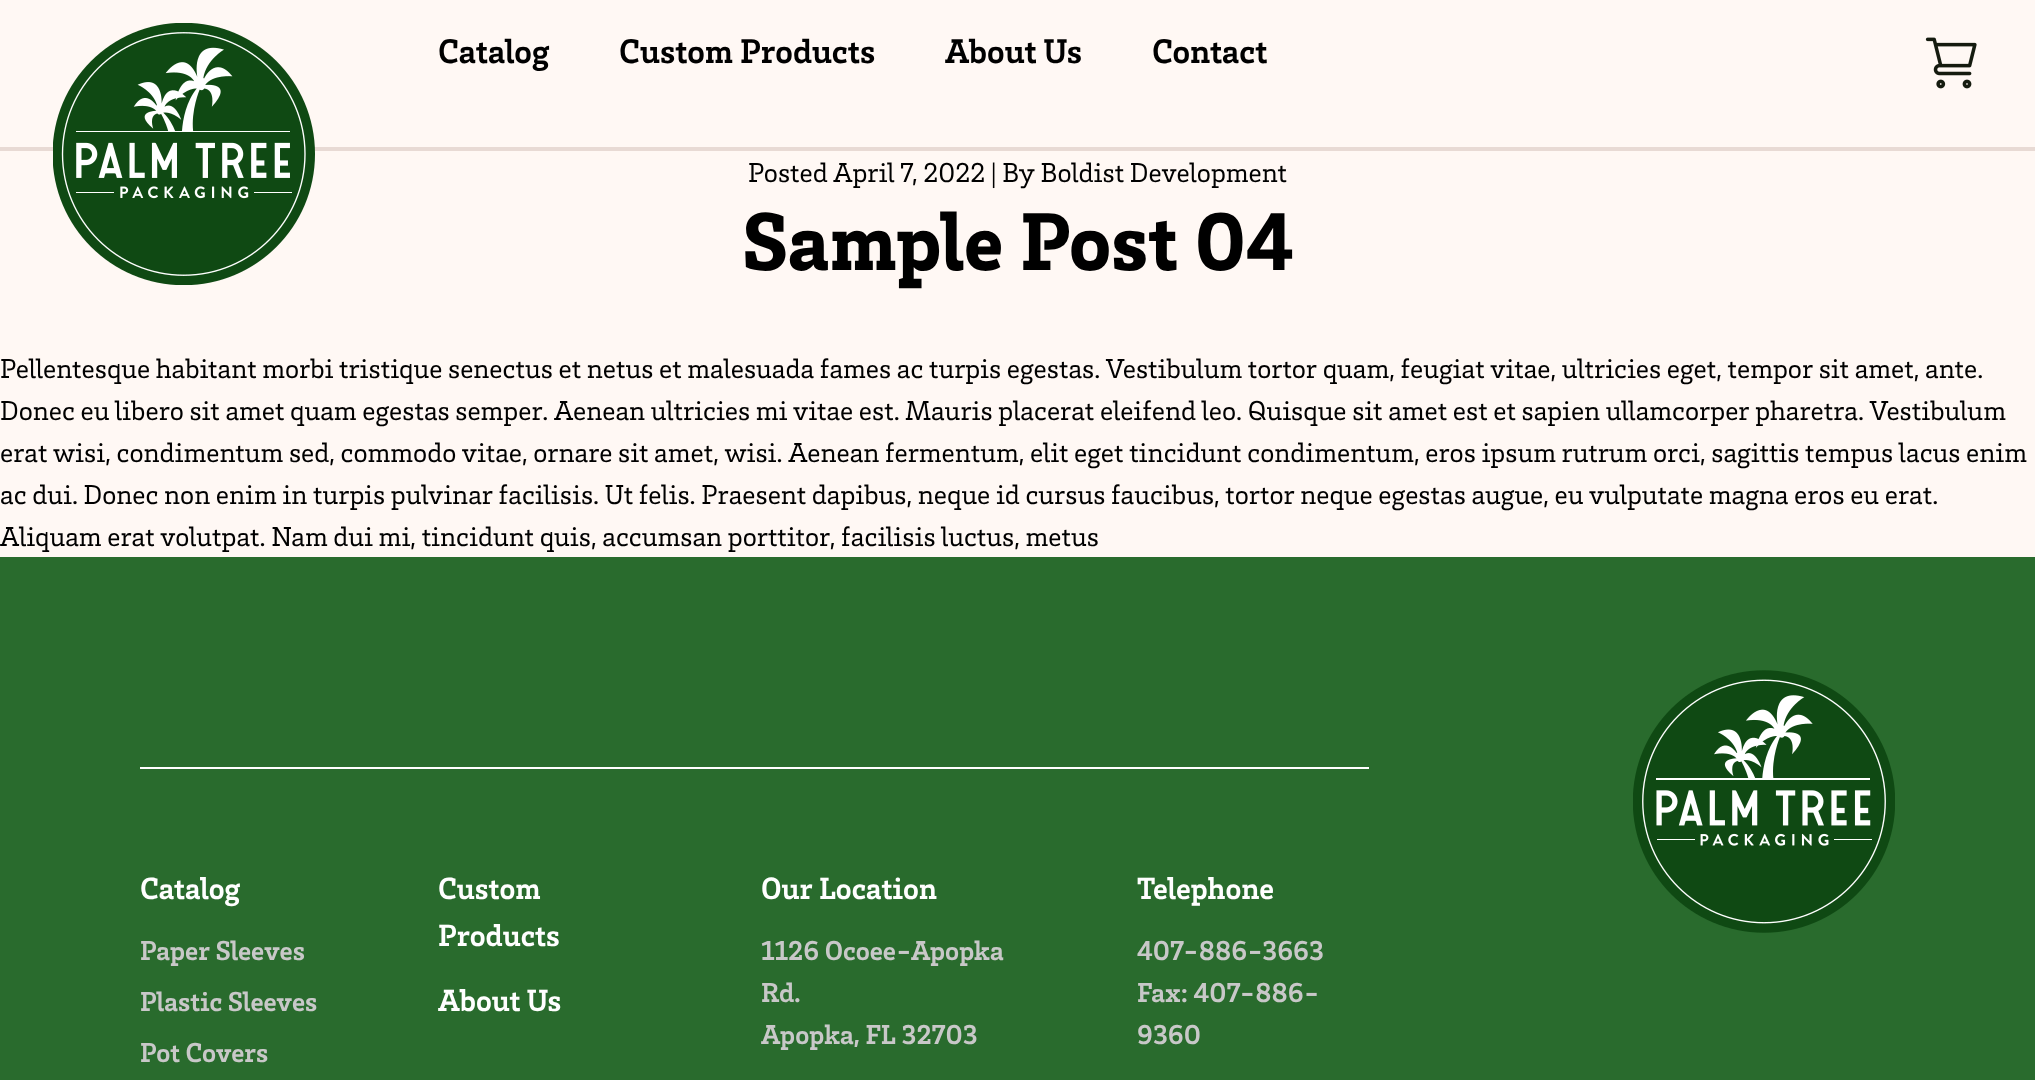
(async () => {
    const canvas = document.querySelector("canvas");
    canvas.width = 2035;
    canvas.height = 1080;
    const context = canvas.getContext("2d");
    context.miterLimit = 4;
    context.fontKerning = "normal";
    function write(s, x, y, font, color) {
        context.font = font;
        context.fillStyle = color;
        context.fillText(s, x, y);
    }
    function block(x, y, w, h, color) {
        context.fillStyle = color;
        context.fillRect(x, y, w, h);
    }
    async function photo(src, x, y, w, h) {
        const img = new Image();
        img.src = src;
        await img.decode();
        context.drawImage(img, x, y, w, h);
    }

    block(0, 0, 2035, 1080, "rgb(255, 248, 244)");
    block(0, 147, 2035, 4, "rgb(232, 218, 212)");
    await photo("media/1.png", 53, 23, 262, 262);
    write("Catalog", 438, 63, "bold 35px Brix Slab", "rgb(0, 0, 0)");
    write("Custom Products", 619, 63, "bold 35px Brix Slab", "rgb(0, 0, 0)");
    write("About Us", 945, 63, "bold 35px Brix Slab", "rgb(0, 0, 0)");
    write("Contact", 1152, 63, "bold 35px Brix Slab", "rgb(0, 0, 0)");
    await photo("media/2.png", 1925, 37, 52, 52);
    write("Posted April 7, 2022 | By Boldist Development", 748, 182, "28px Brix Slab", "rgb(0, 0, 0)");
    write("Sample Post 04", 742, 270, "900 84px Brix Slab", "rgb(0, 0, 0)");
    write("Pellentesque habitant morbi tristique senectus et netus et malesuada fames ac turpis egestas. Vestibulum tortor quam, feugiat vitae, ultricies eget, tempor sit amet, ante.", 0, 378, "28px Brix Slab", "rgb(0, 0, 0)");
    write("Donec eu libero sit amet quam egestas semper. Aenean ultricies mi vitae est. Mauris placerat eleifend leo. Quisque sit amet est et sapien ullamcorper pharetra. Vestibulum", 0, 420, "28px Brix Slab", "rgb(0, 0, 0)");
    write("erat wisi, condimentum sed, commodo vitae, ornare sit amet, wisi. Aenean fermentum, elit eget tincidunt condimentum, eros ipsum rutrum orci, sagittis tempus lacus enim", 0, 462, "28px Brix Slab", "rgb(0, 0, 0)");
    write("ac dui. Donec non enim in turpis pulvinar facilisis. Ut felis. Praesent dapibus, neque id cursus faucibus, tortor neque egestas augue, eu vulputate magna eros eu erat.", 0, 504, "28px Brix Slab", "rgb(0, 0, 0)");
    write("Aliquam erat volutpat. Nam dui mi, tincidunt quis, accumsan porttitor, facilisis luctus, metus", 0, 546, "28px Brix Slab", "rgb(0, 0, 0)");
    block(0, 557, 2035, 523, "rgb(41, 107, 45)");
    await photo("media/3.png", 1633, 670, 262, 263);
    block(140, 767, 1229, 2, "rgb(255, 255, 255)");
    write("Catalog", 140, 899, "bold 31.5px Brix Slab", "rgb(255, 255, 255)");
    write("Paper Sleeves", 140, 960, "bold 28px Brix Slab", "rgb(200, 200, 200)");
    write("Plastic Sleeves", 140, 1011, "bold 28px Brix Slab", "rgb(200, 200, 200)");
    write("Pot Covers", 140, 1062, "bold 28px Brix Slab", "rgb(200, 200, 200)");
    write("Custom", 438, 899, "bold 31.5px Brix Slab", "rgb(255, 255, 255)");
    write("Products", 438, 946, "bold 31.5px Brix Slab", "rgb(255, 255, 255)");
    write("About Us", 438, 1011, "bold 31.5px Brix Slab", "rgb(255, 255, 255)");
    write("Our Location", 761, 899, "bold 31.5px Brix Slab", "rgb(255, 255, 255)");
    write("1126 Ocoee-Apopka", 761, 960, "bold 28px Brix Slab", "rgb(200, 200, 200)");
    write("Rd.", 761, 1002, "bold 28px Brix Slab", "rgb(200, 200, 200)");
    write("Apopka, FL 32703", 761, 1044, "bold 28px Brix Slab", "rgb(200, 200, 200)");
    write("Telephone", 1137, 899, "bold 31.5px Brix Slab", "rgb(255, 255, 255)");
    write("407-886-3663", 1137, 960, "bold 28px Brix Slab", "rgb(200, 200, 200)");
    write("Fax: 407-886-", 1137, 1002, "bold 28px Brix Slab", "rgb(200, 200, 200)");
    write("9360", 1137, 1044, "bold 28px Brix Slab", "rgb(200, 200, 200)");
})();
